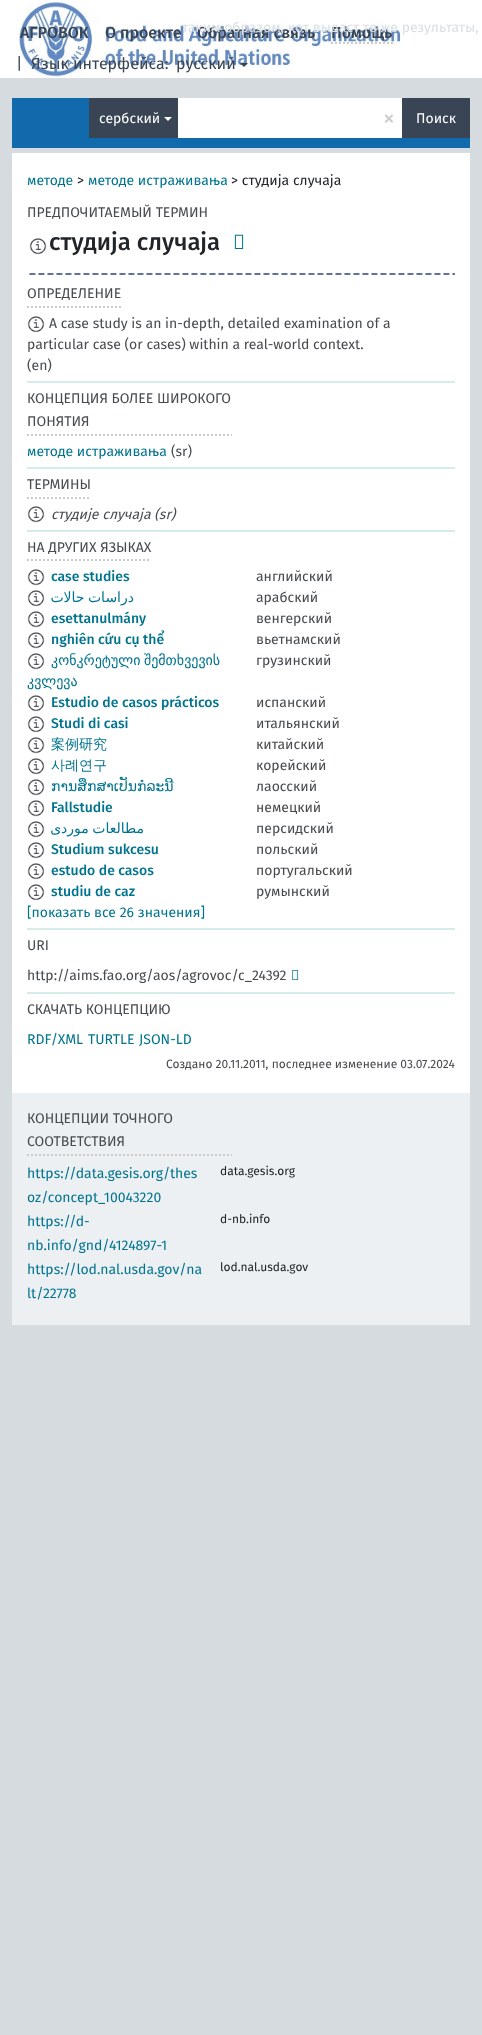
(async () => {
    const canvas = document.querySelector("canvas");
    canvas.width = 482;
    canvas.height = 2035;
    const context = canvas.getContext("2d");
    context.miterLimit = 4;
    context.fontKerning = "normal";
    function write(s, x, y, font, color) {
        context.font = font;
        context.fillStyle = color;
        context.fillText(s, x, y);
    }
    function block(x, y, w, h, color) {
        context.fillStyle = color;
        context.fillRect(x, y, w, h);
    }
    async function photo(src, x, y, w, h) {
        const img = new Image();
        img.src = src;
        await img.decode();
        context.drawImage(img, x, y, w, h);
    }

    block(0, 0, 482, 2035, "rgb(213, 219, 222)");
    block(0, 0, 482, 78, "rgb(255, 255, 255)");
    await photo("media/1.png", 19, 1, 382, 77);
    write("Помощь", 331, 38, "500 16px Fira Sans", "rgb(57, 69, 84)");
    write("Обратная связь", 197, 38, "500 16px Fira Sans", "rgb(57, 69, 84)");
    write("таким образом, кот выдаст те же результаты,", 182, 32, "14px Fira Sans", "rgb(218, 223, 229)");
    context.beginPath();
    context.moveTo(331, 43);
    context.lineTo(393, 43);
    context.strokeStyle = "rgb(204, 204, 204)";
    context.lineWidth = 2;
    context.setLineDash([2, 2]);
    context.stroke();
    write("АГРОВОК", 20, 38, "500 16px Fira Sans", "rgb(57, 69, 84)");
    write("О проекте", 105, 38, "500 16px Fira Sans", "rgb(57, 69, 84)");
    write("|", 16, 69, "16px Fira Sans", "rgb(57, 69, 84)");
    write("Язык интерфейса:", 31, 69, "16px Fira Sans", "rgb(57, 69, 84)");
    write("русский", 176, 69, "16px Fira Sans", "rgb(57, 69, 84)");
    context.beginPath();
    context.moveTo(240, 63);
    context.lineTo(248, 63);
    context.lineTo(244, 67);
    context.closePath();
    context.fill();
    block(12, 98, 458, 50, "rgb(17, 106, 171)");
    block(89, 98, 89, 40, "rgb(57, 69, 84)");
    write("сербский", 99, 123, "14px Fira Sans", "rgb(255, 255, 255)");
    context.beginPath();
    context.moveTo(164, 117);
    context.lineTo(172, 117);
    context.lineTo(168, 121);
    context.closePath();
    context.fill();
    block(178, 98, 224, 40, "rgb(255, 255, 255)");
    write("×", 383, 126, "24px Fira Sans", "rgb(204, 204, 204)");
    block(402, 98, 68, 40, "rgb(57, 69, 84)");
    write("Поиск", 416, 123, "14px Fira Sans", "rgb(255, 255, 255)");
    block(12, 153, 458, 940, "rgb(255, 255, 255)");
    write("методе", 27, 185, "14px Fira Sans", "rgb(0, 116, 143)");
    write(">", 77, 185, "14px Fira Sans", "rgb(33, 37, 41)");
    write("методе истраживања", 88, 185, "14px Fira Sans", "rgb(0, 116, 143)");
    write("> студија случаја", 231, 185, "14px Fira Sans", "rgb(33, 37, 41)");
    write("ПРЕДПОЧИТАЕМЫЙ ТЕРМИН", 27, 217, "14px Fira Sans", "rgb(71, 75, 79)");
    await photo("media/2.png", 29, 238, 18, 17);
    write("студија случаја", 49, 250, "500 24px Fira Sans", "rgb(33, 37, 41)");
    await photo("media/3.png", 234, 234, 10, 15);
    await photo("media/4.png", 29, 273, 426, 2);
    context.beginPath();
    context.moveTo(27, 307);
    context.lineTo(121, 307);
    context.stroke();
    write("ОПРЕДЕЛЕНИЕ", 27, 298, "14px Fira Sans", "rgb(71, 75, 79)");
    block(27, 381, 428, 2, "rgb(212, 237, 235)");
    await photo("media/5.png", 27, 316, 18, 17);
    write("A case study is an in-depth, detailed examination of a", 49, 328, "14px Fira Sans", "rgb(71, 75, 79)");
    write("particular case (or cases) within a real-world context.", 27, 349, "14px Fira Sans", "rgb(71, 75, 79)");
    write("(en)", 27, 370, "14px Fira Sans", "rgb(71, 75, 79)");
    context.beginPath();
    context.moveTo(27, 435);
    context.lineTo(232, 435);
    context.stroke();
    write("КОНЦЕПЦИЯ БОЛЕЕ ШИРОКОГО", 27, 403, "14px Fira Sans", "rgb(71, 75, 79)");
    write("ПОНЯТИЯ", 27, 426, "14px Fira Sans", "rgb(71, 75, 79)");
    block(27, 467, 428, 2, "rgb(212, 237, 235)");
    write("методе истраживања", 27, 456, "14px Fira Sans", "rgb(0, 116, 143)");
    write("(sr)", 171, 456, "14px Fira Sans", "rgb(71, 75, 79)");
    context.beginPath();
    context.moveTo(27, 498);
    context.lineTo(91, 498);
    context.stroke();
    write("ТЕРМИНЫ", 27, 489, "14px Fira Sans", "rgb(71, 75, 79)");
    block(27, 530, 428, 2, "rgb(212, 237, 235)");
    await photo("media/5.png", 27, 506, 18, 17);
    write("студије случаја (sr)", 51, 519, "italic 14px Fira Sans", "rgb(71, 75, 79)");
    context.beginPath();
    context.moveTo(27, 560);
    context.lineTo(151, 560);
    context.stroke();
    write("НА ДРУГИХ ЯЗЫКАХ", 27, 552, "14px Fira Sans", "rgb(71, 75, 79)");
    block(27, 928, 428, 2, "rgb(212, 237, 235)");
    await photo("media/5.png", 27, 569, 18, 17);
    write("case studies", 51, 581, "500 14px Fira Sans", "rgb(0, 116, 143)");
    write("английский", 256, 581, "14px Fira Sans", "rgb(71, 75, 79)");
    await photo("media/5.png", 27, 590, 18, 17);
    context.wordSpacing = "-1px";
    context.direction = "rtl";
    write("دراسات حالات", 134, 602, "14px DejaVu Sans", "rgb(0, 116, 143)");
    context.wordSpacing = "0px";
    context.direction = "ltr";
    write("арабский", 256, 602, "14px Fira Sans", "rgb(71, 75, 79)");
    await photo("media/5.png", 27, 611, 18, 17);
    write("esettanulmány", 51, 623, "500 14px Fira Sans", "rgb(0, 116, 143)");
    write("венгерский", 256, 623, "14px Fira Sans", "rgb(71, 75, 79)");
    await photo("media/5.png", 27, 632, 18, 17);
    write("nghiên cứu cụ thể", 51, 644, "500 14px Fira Sans", "rgb(0, 116, 143)");
    write("вьетнамский", 256, 644, "14px Fira Sans", "rgb(71, 75, 79)");
    await photo("media/6.png", 27, 653, 18, 17);
    context.wordSpacing = "-1px";
    write("კონკრეტული შემთხვევის", 51, 665, "14px DejaVu Sans", "rgb(0, 116, 143)");
    context.wordSpacing = "0px";
    write("კვლევა", 27, 686, "14px DejaVu Sans", "rgb(0, 116, 143)");
    write("грузинский", 256, 665, "14px Fira Sans", "rgb(71, 75, 79)");
    await photo("media/5.png", 27, 695, 18, 17);
    write("Estudio de casos prácticos", 51, 707, "500 14px Fira Sans", "rgb(0, 116, 143)");
    write("испанский", 256, 707, "14px Fira Sans", "rgb(71, 75, 79)");
    await photo("media/5.png", 27, 716, 18, 17);
    write("Studi di casi", 51, 728, "500 14px Fira Sans", "rgb(0, 116, 143)");
    write("итальянский", 256, 728, "14px Fira Sans", "rgb(71, 75, 79)");
    await photo("media/5.png", 27, 737, 18, 17);
    write("案例研究", 51, 749, "500 14px WenQuanYi Zen Hei", "rgb(0, 116, 143)");
    write("китайский", 256, 749, "14px Fira Sans", "rgb(71, 75, 79)");
    await photo("media/5.png", 27, 758, 18, 17);
    write("사례연구", 51, 770, "500 14px WenQuanYi Zen Hei", "rgb(0, 116, 143)");
    write("корейский", 256, 770, "14px Fira Sans", "rgb(71, 75, 79)");
    await photo("media/5.png", 27, 779, 18, 17);
    write("ການສຶກສາເປັນກໍລະນີ", 51, 791, "14px DejaVu Sans", "rgb(0, 116, 143)");
    write("лаосский", 256, 791, "14px Fira Sans", "rgb(71, 75, 79)");
    await photo("media/5.png", 27, 800, 18, 17);
    write("Fallstudie", 51, 812, "500 14px Fira Sans", "rgb(0, 116, 143)");
    write("немецкий", 256, 812, "14px Fira Sans", "rgb(71, 75, 79)");
    await photo("media/5.png", 27, 821, 18, 17);
    context.wordSpacing = "-1px";
    context.direction = "rtl";
    write("مطالعات موردی", 144, 833, "14px DejaVu Sans", "rgb(0, 116, 143)");
    context.wordSpacing = "0px";
    context.direction = "ltr";
    write("персидский", 256, 833, "14px Fira Sans", "rgb(71, 75, 79)");
    await photo("media/7.png", 27, 842, 18, 17);
    write("Studium sukcesu", 51, 854, "500 14px Fira Sans", "rgb(0, 116, 143)");
    write("польский", 256, 854, "14px Fira Sans", "rgb(71, 75, 79)");
    await photo("media/5.png", 27, 863, 18, 17);
    write("estudo de casos", 51, 875, "500 14px Fira Sans", "rgb(0, 116, 143)");
    write("португальский", 256, 875, "14px Fira Sans", "rgb(71, 75, 79)");
    await photo("media/5.png", 27, 884, 18, 17);
    write("studiu de caz", 51, 896, "500 14px Fira Sans", "rgb(0, 116, 143)");
    write("румынский", 256, 896, "14px Fira Sans", "rgb(71, 75, 79)");
    write("[показать все 26 значения]", 27, 917, "14px Fira Sans", "rgb(0, 116, 143)");
    write("URI", 27, 950, "14px Fira Sans", "rgb(71, 75, 79)");
    block(27, 992, 428, 2, "rgb(212, 237, 235)");
    write("http://aims.fao.org/aos/agrovoc/c_24392", 27, 980, "14px Fira Sans", "rgb(71, 75, 79)");
    await photo("media/8.png", 292, 970, 7, 10);
    write("СКАЧАТЬ КОНЦЕПЦИЮ", 27, 1014, "14px Fira Sans", "rgb(71, 75, 79)");
    write("RDF/XML", 27, 1044, "14px Fira Sans", "rgb(0, 116, 143)");
    write("TURTLE", 88, 1044, "14px Fira Sans", "rgb(0, 116, 143)");
    write("JSON-LD", 139, 1044, "14px Fira Sans", "rgb(0, 116, 143)");
    write("Создано 20.11.2011, последнее изменение 03.07.2024", 166, 1068, "12px Fira Sans", "rgb(71, 75, 79)");
    block(12, 1093, 458, 232, "rgb(237, 240, 242)");
    context.beginPath();
    context.moveTo(27, 1155);
    context.lineTo(232, 1155);
    context.stroke();
    write("КОНЦЕПЦИИ ТОЧНОГО", 27, 1123, "14px Fira Sans", "rgb(71, 75, 79)");
    write("СООТВЕТСТВИЯ", 27, 1146, "14px Fira Sans", "rgb(71, 75, 79)");
    write("https://data.gesis.org/thes", 27, 1178, "14px Fira Sans", "rgb(0, 116, 143)");
    write("oz/concept_10043220", 27, 1202, "14px Fira Sans", "rgb(0, 116, 143)");
    write("data.gesis.org", 220, 1175, "12px Fira Sans", "rgb(33, 37, 41)");
    write("https://d-", 27, 1226, "14px Fira Sans", "rgb(0, 116, 143)");
    write("nb.info/gnd/4124897-1", 27, 1250, "14px Fira Sans", "rgb(0, 116, 143)");
    write("d-nb.info", 220, 1223, "12px Fira Sans", "rgb(33, 37, 41)");
    write("https://lod.nal.usda.gov/na", 27, 1274, "14px Fira Sans", "rgb(0, 116, 143)");
    write("lt/22778", 27, 1298, "14px Fira Sans", "rgb(0, 116, 143)");
    write("lod.nal.usda.gov", 220, 1271, "12px Fira Sans", "rgb(33, 37, 41)");
})();
